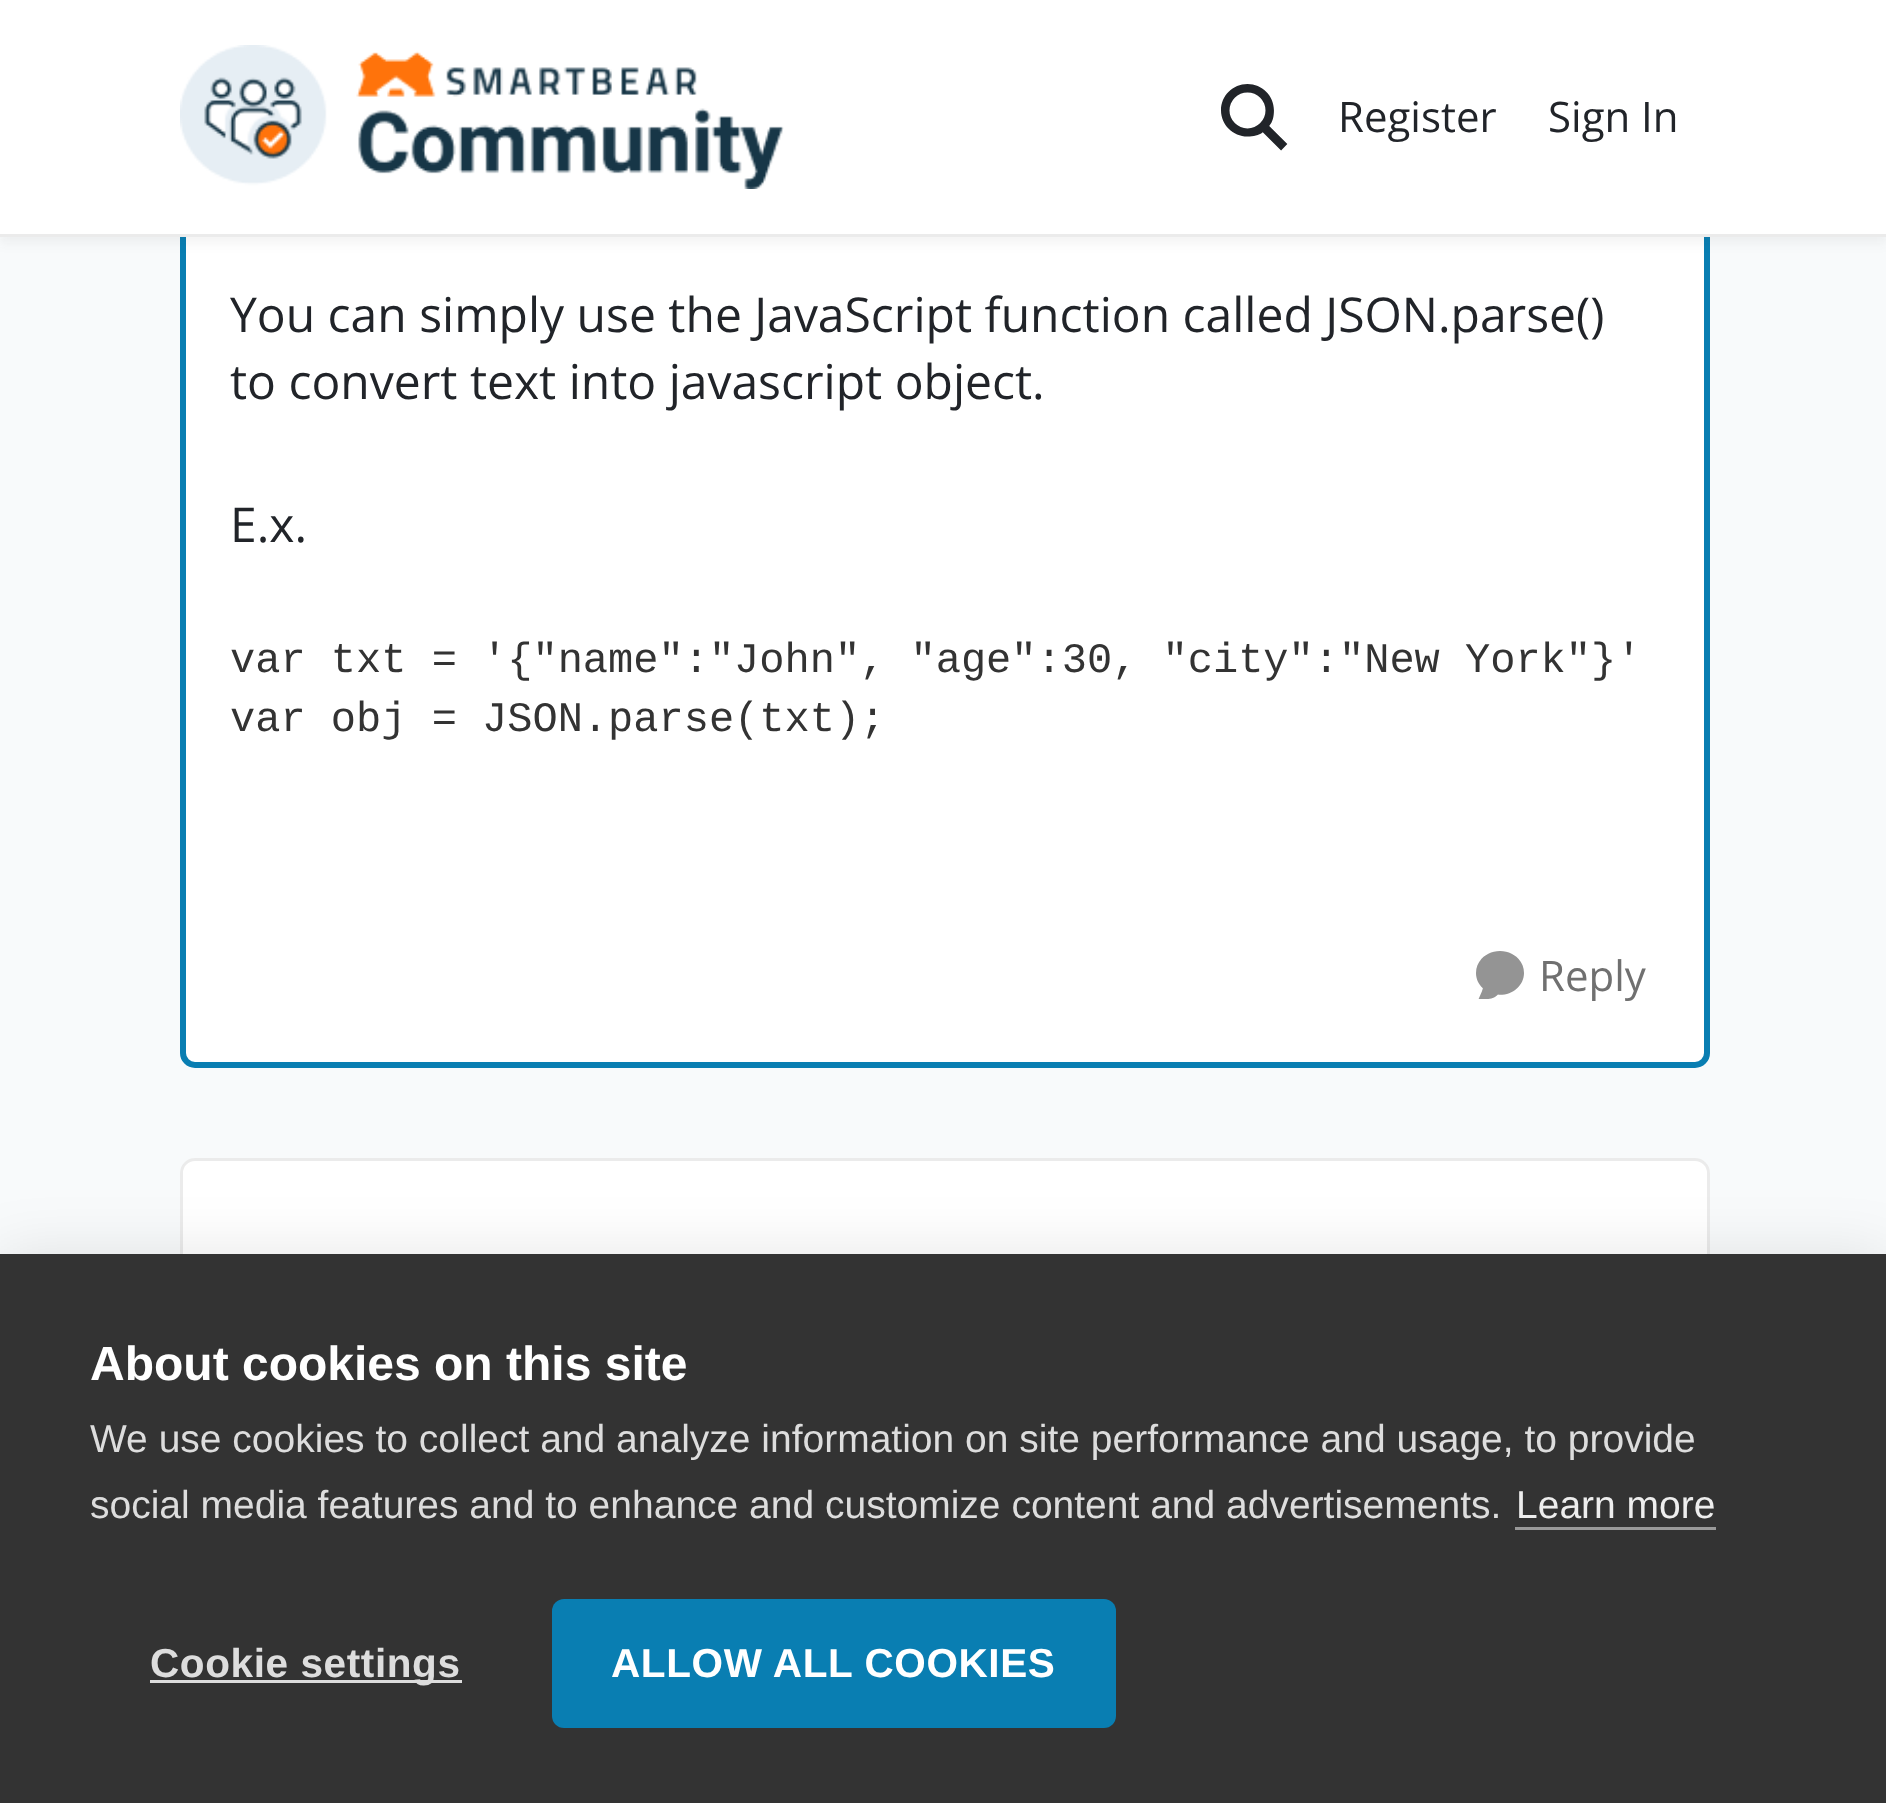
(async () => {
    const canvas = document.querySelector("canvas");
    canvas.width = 1886;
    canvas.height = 1803;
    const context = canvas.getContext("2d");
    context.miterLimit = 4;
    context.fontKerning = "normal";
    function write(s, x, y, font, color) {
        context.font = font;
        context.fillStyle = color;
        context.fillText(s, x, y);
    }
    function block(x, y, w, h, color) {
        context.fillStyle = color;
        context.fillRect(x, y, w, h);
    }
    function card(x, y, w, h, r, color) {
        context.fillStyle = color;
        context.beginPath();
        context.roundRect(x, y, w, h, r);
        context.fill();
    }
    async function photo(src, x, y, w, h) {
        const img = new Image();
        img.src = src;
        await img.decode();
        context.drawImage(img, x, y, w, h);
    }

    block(0, 0, 1886, 1803, "rgb(248, 250, 251)");
    context.fillStyle = "rgb(255, 255, 255)";
    context.beginPath();
    context.roundRect(183, -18, 1524, 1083, 12);
    context.fill();
    context.strokeStyle = "rgb(9, 126, 178)";
    context.lineWidth = 6;
    context.stroke();
    context.fillStyle = "rgba(51, 51, 51, 0.06)";
    context.filter = "blur(6px)";
    context.beginPath();
    context.rect(0, 6, 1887, 237);
    context.fill();
    context.filter = "none";
    block(0, 0, 1886, 234, "rgb(255, 255, 255)");
    block(0, 234, 1886, 3, "rgb(235, 235, 235)");
    await photo("media/1.png", 180, 45, 604, 144);
    await photo("media/2.png", 1221, 84, 67, 67);
    write("Register", 1338, 132, "42px Open Sans", "rgb(33, 36, 41)");
    write("Sign In", 1548, 132, "42px Open Sans", "rgb(33, 36, 41)");
    write("You can simply use the JavaScript function called JSON.parse()", 230, 332, "48px Open Sans", "rgb(33, 36, 41)");
    write("to convert text into javascript object.", 230, 399, "48px Open Sans", "rgb(33, 36, 41)");
    write("E.x.", 230, 542, "48px Open Sans", "rgb(33, 36, 41)");
    write("var txt = '{\"name\":\"John\", \"age\":30, \"city\":\"New York\"}'", 230, 672, "42px Liberation Mono", "rgb(51, 51, 51)");
    write("var obj = JSON.parse(txt);", 230, 731, "42px Liberation Mono", "rgb(51, 51, 51)");
    await photo("media/3.png", 1476, 951, 48, 48);
    write("Reply", 1539, 991, "42px Open Sans", "rgb(112, 112, 112)");
    card(180, 1158, 1530, 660, 15, "rgb(255, 255, 255)");
    context.beginPath();
    context.roundRect(181.5, 1159.5, 1527, 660, 13.5);
    context.strokeStyle = "rgba(0, 0, 0, 0.08)";
    context.lineWidth = 3;
    context.stroke();
    context.fillStyle = "rgba(0, 0, 0, 0.1)";
    context.filter = "blur(30px)";
    context.beginPath();
    context.rect(0, 1254, 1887, 549);
    context.fill();
    context.filter = "none";
    block(0, 1254, 1886, 549, "rgb(51, 51, 51)");
    write("About cookies on this site", 90, 1380, "bold 48px Liberation Sans", "rgb(255, 255, 255)");
    write("We use cookies to collect and analyze information on site performance and usage, to provide", 90, 1452, "39px Liberation Sans", "rgb(221, 221, 221)");
    write("social media features and to enhance and customize content and advertisements.", 90, 1518, "39px Liberation Sans", "rgb(221, 221, 221)");
    write("Learn more", 1516, 1518, "39px Liberation Sans", "rgb(238, 238, 238)");
    block(1515, 1527, 201, 3, "rgb(153, 153, 153)");
    block(150, 1680, 312, 3, "rgb(221, 221, 221)");
    context.letterSpacing = "0.6px";
    write("Cookie settings", 150, 1677, "bold 40.5px Liberation Sans", "rgb(221, 221, 221)");
    card(552, 1599, 564, 129, 12, "rgb(9, 126, 178)");
    write("ALLOW ALL COOKIES", 611, 1677, "bold 40.5px Liberation Sans", "rgb(255, 255, 255)");
})();
